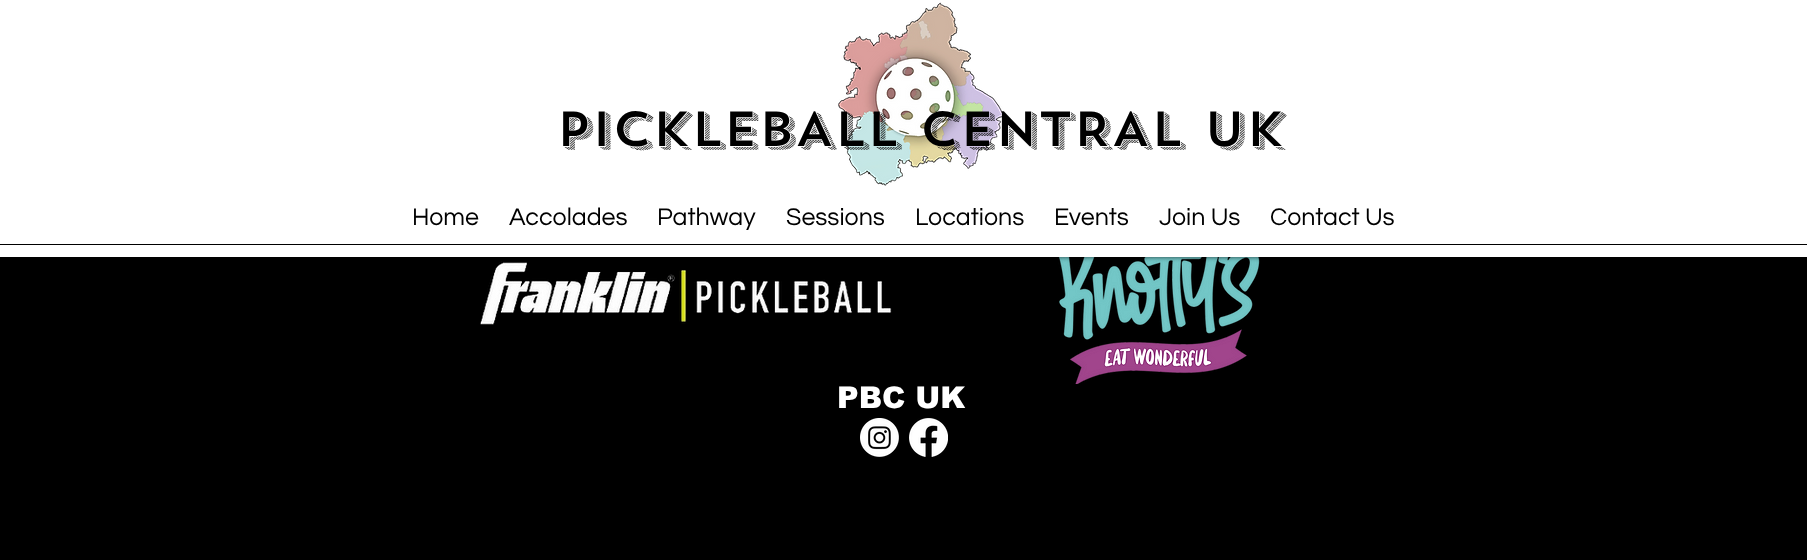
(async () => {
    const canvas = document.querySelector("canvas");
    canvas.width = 1807;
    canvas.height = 560;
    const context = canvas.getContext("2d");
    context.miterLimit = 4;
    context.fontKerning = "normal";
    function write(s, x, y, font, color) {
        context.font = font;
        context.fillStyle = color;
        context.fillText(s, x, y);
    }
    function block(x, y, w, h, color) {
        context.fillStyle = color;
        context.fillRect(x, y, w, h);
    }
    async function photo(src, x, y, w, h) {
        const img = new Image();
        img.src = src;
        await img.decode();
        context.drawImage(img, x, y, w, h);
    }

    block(0, 0, 1807, 560, "rgb(0, 0, 0)");
    await photo("media/2.png", 480, 261, 412, 64);
    await photo("media/3.png", 1058, 257, 202, 127);
    context.fillStyle = "rgba(0, 0, 0, 0.7)";
    context.filter = "blur(2.5px)";
    context.beginPath();
    context.rect(0, 0, 1807, 257);
    context.fill();
    context.filter = "none";
    block(0, 0, 1807, 257, "rgb(255, 255, 255)");
    await photo("media/1.png", 838, 2, 166, 184);
    write("PICKLEBALL CENTRAL UK", 556, 146, "500 49px 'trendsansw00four'", "rgb(0, 0, 0)");
    write("Home", 412, 225, "25px Questrial", "rgb(0, 0, 0)");
    write("Accolades", 509, 225, "25px Questrial", "rgb(0, 0, 0)");
    write("Pathway", 657, 225, "25px Questrial", "rgb(0, 0, 0)");
    write("Sessions", 786, 225, "25px Questrial", "rgb(0, 0, 0)");
    write("Locations", 915, 225, "25px Questrial", "rgb(0, 0, 0)");
    write("Events", 1054, 225, "25px Questrial", "rgb(0, 0, 0)");
    write("Join Us", 1159, 225, "25px Questrial", "rgb(0, 0, 0)");
    write("Contact Us", 1270, 225, "25px Questrial", "rgb(0, 0, 0)");
    block(0, 244, 1807, 1, "rgb(0, 0, 0)");
    write("PBC UK", 837, 408, "900 30px arial", "rgb(255, 255, 255)");
    await photo("media/4.png", 860, 418, 39, 39);
    await photo("media/5.png", 909, 418, 39, 39);
})();
